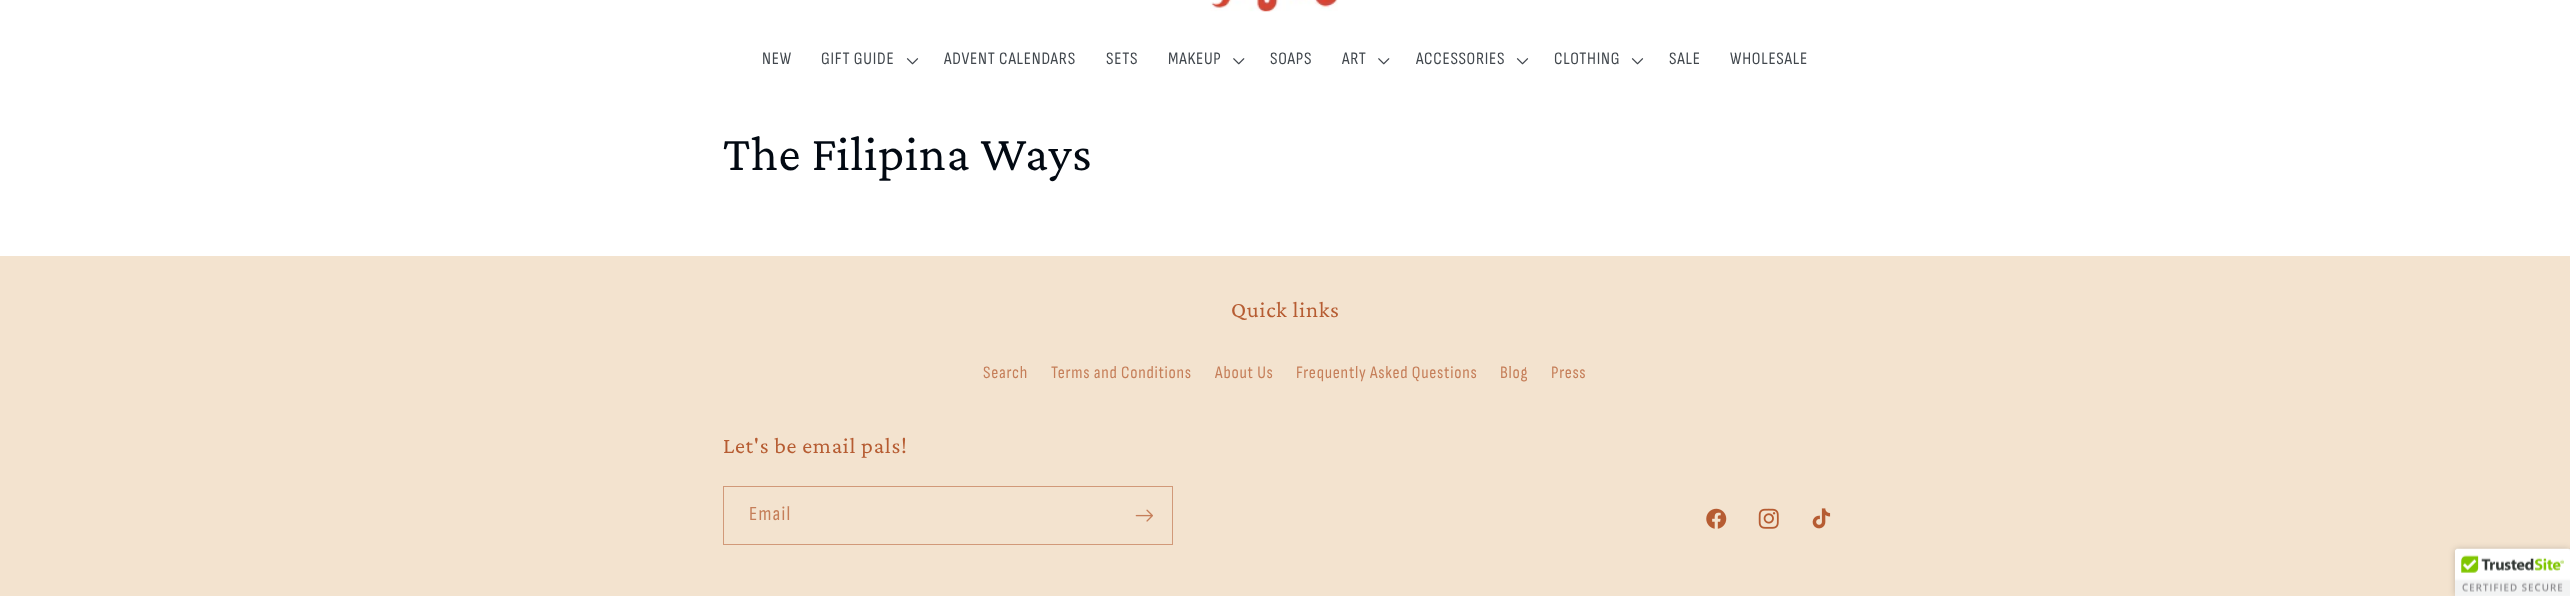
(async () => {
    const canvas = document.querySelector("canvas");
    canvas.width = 2570;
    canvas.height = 596;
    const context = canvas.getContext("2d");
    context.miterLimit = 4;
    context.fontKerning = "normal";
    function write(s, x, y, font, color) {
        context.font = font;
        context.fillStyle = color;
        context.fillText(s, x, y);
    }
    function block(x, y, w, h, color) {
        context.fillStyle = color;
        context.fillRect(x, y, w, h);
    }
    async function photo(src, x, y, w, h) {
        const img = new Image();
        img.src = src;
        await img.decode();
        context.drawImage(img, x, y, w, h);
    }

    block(0, 0, 2570, 596, "rgb(255, 255, 255)");
    await photo("media/1.png", 1210, 0, 128, 12);
    context.letterSpacing = "0.75px";
    write("NEW", 762, 64, "17.5px Sofia Sans Condensed", "rgb(65, 71, 77)");
    write("GIFT GUIDE", 821, 64, "17.5px Sofia Sans Condensed", "rgb(65, 71, 77)");
    await photo("media/2.png", 906, 58, 13, 7);
    write("ADVENT CALENDARS", 944, 64, "17.5px Sofia Sans Condensed", "rgb(65, 71, 77)");
    write("SETS", 1106, 64, "17.5px Sofia Sans Condensed", "rgb(65, 71, 77)");
    write("MAKEUP", 1168, 64, "17.5px Sofia Sans Condensed", "rgb(65, 71, 77)");
    await photo("media/3.png", 1233, 58, 12, 7);
    write("SOAPS", 1270, 64, "17.5px Sofia Sans Condensed", "rgb(65, 71, 77)");
    write("ART", 1342, 64, "17.5px Sofia Sans Condensed", "rgb(65, 71, 77)");
    await photo("media/3.png", 1378, 58, 12, 7);
    write("ACCESSORIES", 1416, 64, "17.5px Sofia Sans Condensed", "rgb(65, 71, 77)");
    await photo("media/2.png", 1516, 58, 13, 7);
    write("CLOTHING", 1554, 64, "17.5px Sofia Sans Condensed", "rgb(65, 71, 77)");
    await photo("media/2.png", 1631, 58, 13, 7);
    write("SALE", 1669, 64, "17.5px Sofia Sans Condensed", "rgb(65, 71, 77)");
    write("WHOLESALE", 1730, 64, "17.5px Sofia Sans Condensed", "rgb(65, 71, 77)");
    write("The Filipina Ways", 723, 170, "50px Crimson Pro", "rgb(2, 9, 18)");
    block(0, 256, 2570, 340, "rgb(243, 227, 207)");
    write("Quick links", 1231, 317, "22.5px Crimson Pro", "rgb(182, 92, 50)");
    write("Search", 983, 378, "17.5px Sofia Sans Condensed", "rgb(197, 126, 89)");
    write("Terms and Conditions", 1051, 378, "17.5px Sofia Sans Condensed", "rgb(197, 126, 89)");
    write("About Us", 1215, 378, "17.5px Sofia Sans Condensed", "rgb(197, 126, 89)");
    write("Frequently Asked Questions", 1296, 378, "17.5px Sofia Sans Condensed", "rgb(197, 126, 89)");
    write("Blog", 1500, 378, "17.5px Sofia Sans Condensed", "rgb(197, 126, 89)");
    write("Press", 1551, 378, "17.5px Sofia Sans Condensed", "rgb(197, 126, 89)");
    write("Let's be email pals!", 723, 453, "22.5px Crimson Pro", "rgb(182, 92, 50)");
    context.strokeStyle = "rgb(209, 153, 121)";
    context.strokeRect(723.5, 486.5, 449, 58);
    context.letterSpacing = "1.25px";
    write("Email", 749, 520, "20px Sofia Sans Condensed", "rgb(197, 126, 89)");
    await photo("media/4.png", 1135, 509, 18, 13);
    await photo("media/5.png", 1706, 508, 21, 21);
    await photo("media/6.png", 1758, 508, 21, 21);
    await photo("media/7.png", 1812, 508, 19, 21);
    context.fillStyle = "rgba(0, 0, 0, 0.2)";
    context.filter = "blur(3px)";
    context.beginPath();
    context.roundRect(2455, 549, 115, 47, 2.5);
    context.fill();
    context.filter = "none";
    context.fillStyle = "rgb(255, 255, 255)";
    context.beginPath();
    context.roundRect(2455, 549, 115, 47, [2.5, 0, 0, 0]);
    context.fill();
    await photo("media/8.png", 2455, 548, 115, 48);
})();
